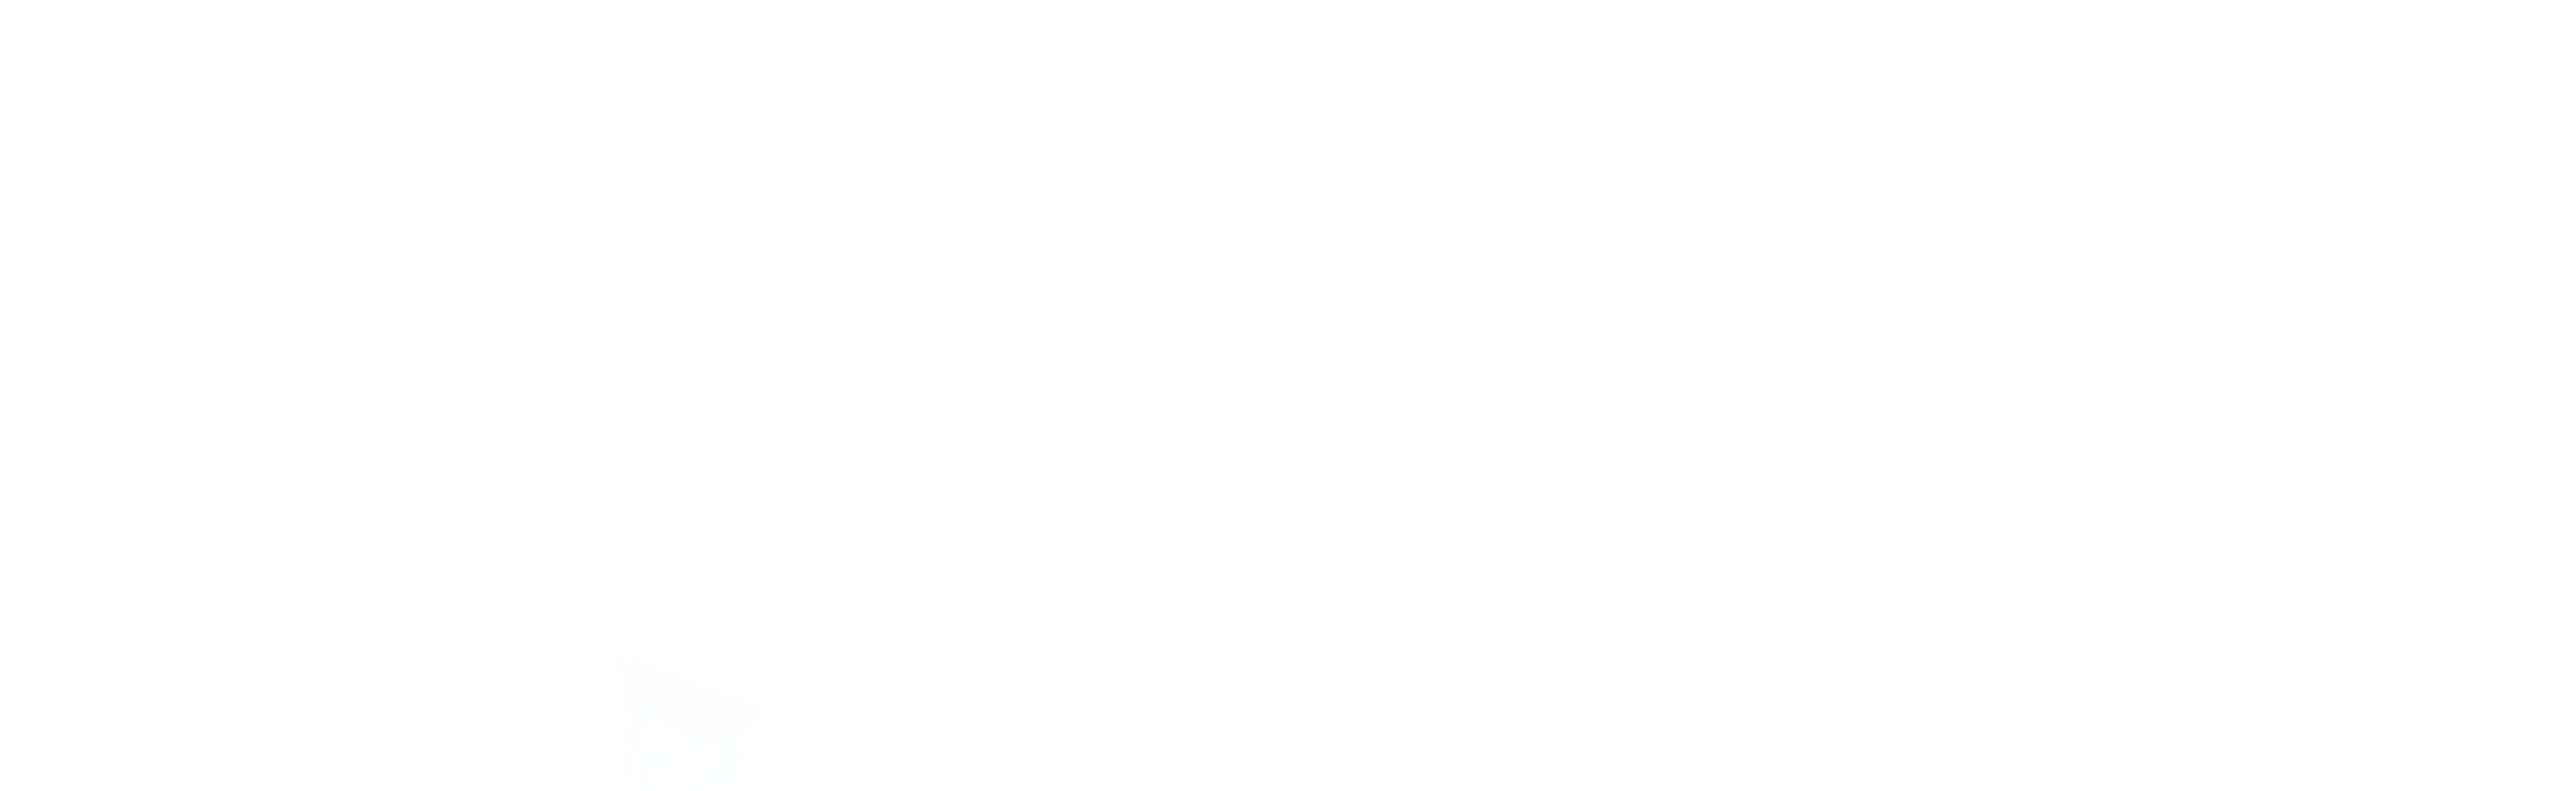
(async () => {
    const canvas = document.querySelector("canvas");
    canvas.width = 2571;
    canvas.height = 791;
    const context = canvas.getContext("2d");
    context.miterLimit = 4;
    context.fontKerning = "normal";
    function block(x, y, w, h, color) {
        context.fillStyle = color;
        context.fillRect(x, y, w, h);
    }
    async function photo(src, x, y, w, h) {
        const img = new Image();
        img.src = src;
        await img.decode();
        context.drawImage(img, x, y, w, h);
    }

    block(0, 0, 2571, 791, "rgb(255, 255, 255)");
    await photo("media/1.png", 0, 182, 2571, 17);
    await photo("media/2.png", 598, 565, 292, 226);
    await photo("media/3.png", 1019, 586, 20, 15);
    await photo("media/4.png", 1019, 647, 20, 15);
    await photo("media/5.png", 1019, 708, 20, 15);
    await photo("media/6.png", 1019, 769, 20, 15);
})();
